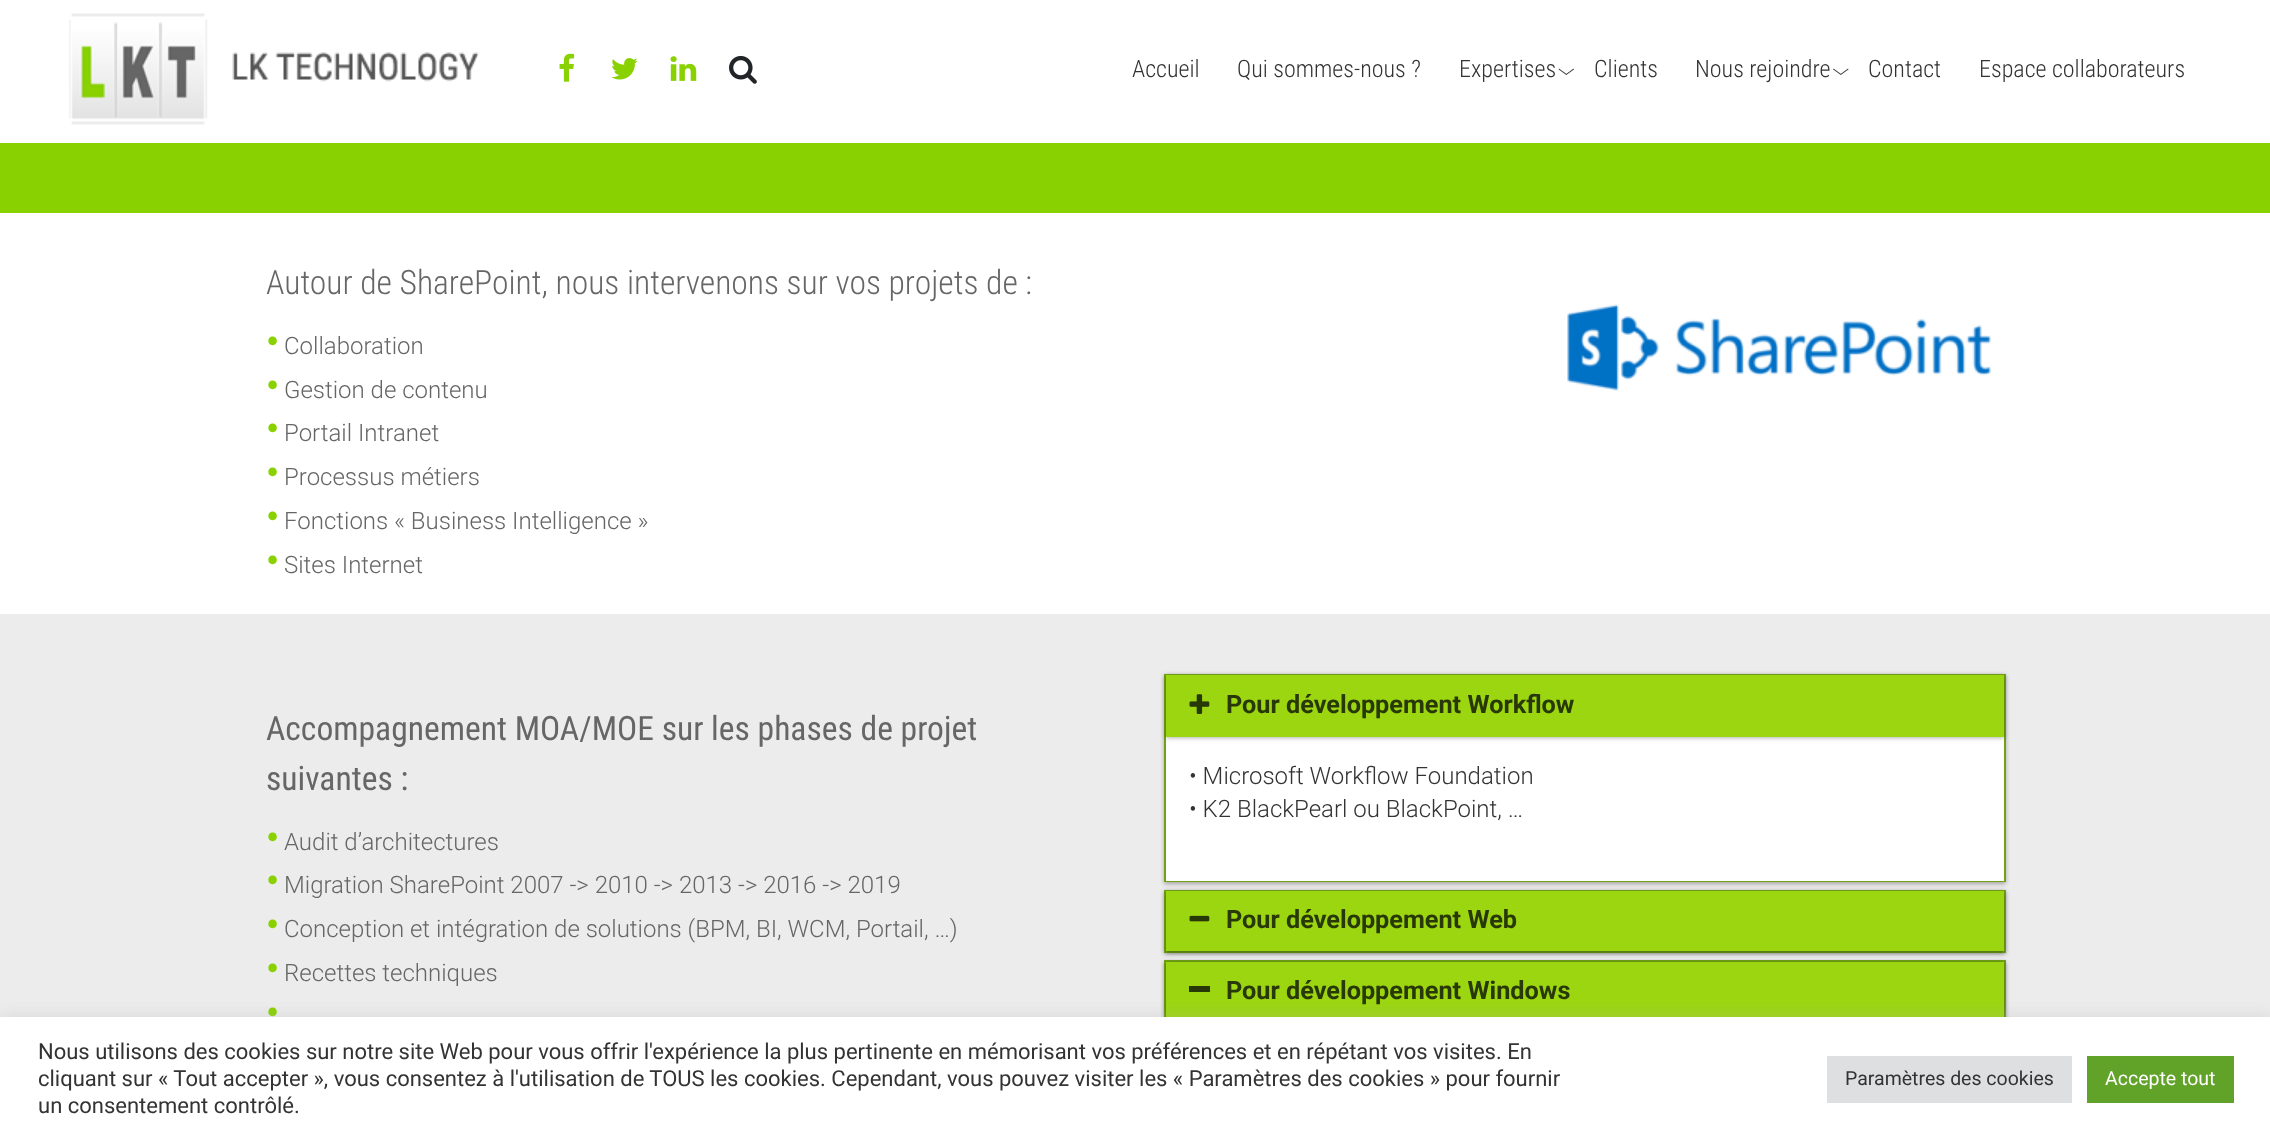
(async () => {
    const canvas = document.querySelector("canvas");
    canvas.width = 2270;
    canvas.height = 1139;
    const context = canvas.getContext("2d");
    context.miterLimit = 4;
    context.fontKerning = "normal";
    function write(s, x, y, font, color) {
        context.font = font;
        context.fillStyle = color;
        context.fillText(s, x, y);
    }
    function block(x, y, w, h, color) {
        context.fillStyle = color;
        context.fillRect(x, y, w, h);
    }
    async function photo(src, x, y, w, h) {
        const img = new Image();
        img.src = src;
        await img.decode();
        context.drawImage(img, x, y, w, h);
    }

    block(0, 0, 2270, 1139, "rgb(255, 255, 255)");
    await photo("media/1.png", 69, 13, 410, 112);
    await photo("media/2.png", 559, 53, 16, 29);
    await photo("media/3.png", 611, 58, 27, 22);
    await photo("media/4.png", 670, 56, 27, 25);
    await photo("media/5.png", 729, 55, 28, 29);
    write("Accueil", 1132, 77, "300 24px Roboto Condensed", "rgb(51, 51, 51)");
    write("Qui sommes-nous ?", 1237, 77, "300 24px Roboto Condensed", "rgb(51, 51, 51)");
    write("Expertises", 1459, 77, "300 24px Roboto Condensed", "rgb(51, 51, 51)");
    await photo("media/6.png", 1558, 68, 16, 7);
    write("Clients", 1594, 77, "300 24px Roboto Condensed", "rgb(51, 51, 51)");
    write("Nous rejoindre", 1695, 77, "300 24px Roboto Condensed", "rgb(51, 51, 51)");
    await photo("media/7.png", 1833, 68, 16, 7);
    write("Contact", 1868, 77, "300 24px Roboto Condensed", "rgb(51, 51, 51)");
    write("Espace collaborateurs", 1979, 77, "300 24px Roboto Condensed", "rgb(51, 51, 51)");
    block(0, 143, 2270, 70, "rgb(137, 209, 1)");
    write("Autour de SharePoint, nous intervenons sur vos projets de :", 266, 294, "300 33.6px Roboto Condensed", "rgb(102, 102, 102)");
    write("•", 266, 354, "bold 36px Roboto", "rgb(137, 209, 1)");
    write("Collaboration", 284, 354, "300 24px Roboto", "rgb(102, 102, 102)");
    write("•", 266, 398, "bold 36px Roboto", "rgb(137, 209, 1)");
    write("Gestion de contenu", 284, 398, "300 24px Roboto", "rgb(102, 102, 102)");
    write("•", 266, 441, "bold 36px Roboto", "rgb(137, 209, 1)");
    write("Portail Intranet", 284, 441, "300 24px Roboto", "rgb(102, 102, 102)");
    write("•", 266, 485, "bold 36px Roboto", "rgb(137, 209, 1)");
    write("Processus métiers", 284, 485, "300 24px Roboto", "rgb(102, 102, 102)");
    write("•", 266, 529, "bold 36px Roboto", "rgb(137, 209, 1)");
    write("Fonctions « Business Intelligence »", 284, 529, "300 24px Roboto", "rgb(102, 102, 102)");
    write("•", 266, 573, "bold 36px Roboto", "rgb(137, 209, 1)");
    write("Sites Internet", 284, 573, "300 24px Roboto", "rgb(102, 102, 102)");
    await photo("media/8.png", 1567, 304, 424, 87);
    block(0, 614, 2270, 403, "rgb(236, 236, 236)");
    write("Accompagnement MOA/MOE sur les phases de projet", 266, 740, "33.6px Roboto Condensed", "rgb(102, 102, 102)");
    write("suivantes :", 266, 790, "33.6px Roboto Condensed", "rgb(102, 102, 102)");
    write("•", 266, 850, "bold 36px Roboto", "rgb(137, 209, 1)");
    write("Audit d’architectures", 284, 850, "300 24px Roboto", "rgb(102, 102, 102)");
    write("•", 266, 893, "bold 36px Roboto", "rgb(137, 209, 1)");
    write("Migration SharePoint 2007 -> 2010 -> 2013 -> 2016 -> 2019", 284, 893, "300 24px Roboto", "rgb(102, 102, 102)");
    write("•", 266, 937, "bold 36px Roboto", "rgb(137, 209, 1)");
    write("Conception et intégration de solutions (BPM, BI, WCM, Portail, …)", 284, 937, "300 24px Roboto", "rgb(102, 102, 102)");
    write("•", 266, 981, "bold 36px Roboto", "rgb(137, 209, 1)");
    write("Recettes techniques", 284, 981, "300 24px Roboto", "rgb(102, 102, 102)");
    write("•", 266, 1025, "bold 36px Roboto", "rgb(137, 209, 1)");
    context.fillStyle = "rgba(0, 0, 0, 0.3)";
    context.filter = "blur(2px)";
    context.beginPath();
    context.rect(1164, 675, 842, 209);
    context.fill();
    context.filter = "none";
    context.strokeStyle = "rgb(113, 161, 21)";
    context.lineWidth = 2;
    context.strokeRect(1165, 675, 840, 206);
    block(1166, 737, 838, 144, "rgb(255, 255, 255)");
    context.fillStyle = "rgba(0, 0, 0, 0.3)";
    context.filter = "blur(2px)";
    context.beginPath();
    context.rect(1166, 677, 838, 61);
    context.fill();
    context.filter = "none";
    block(1166, 675, 838, 62, "rgb(155, 214, 17)");
    await photo("media/9.png", 1189, 694, 21, 20);
    write("Pour développement Workflow", 1226, 713, "bold 25.25px Roboto", "rgb(41, 56, 7)");
    write("• Microsoft Workflow Foundation", 1189, 784, "300 24px Roboto", "rgb(51, 51, 51)");
    write("• K2 BlackPearl ou BlackPoint, …", 1189, 817, "300 24px Roboto", "rgb(51, 51, 51)");
    context.fillStyle = "rgba(0, 0, 0, 0.3)";
    context.filter = "blur(2px)";
    context.beginPath();
    context.rect(1164, 891, 842, 63);
    context.fill();
    context.filter = "none";
    context.strokeRect(1165, 891, 840, 61);
    context.filter = "blur(2px)";
    context.beginPath();
    context.rect(1166, 893, 838, 60);
    context.fill();
    context.filter = "none";
    block(1166, 891, 838, 60, "rgb(155, 214, 17)");
    await photo("media/10.png", 1189, 915, 21, 7);
    write("Pour développement Web", 1226, 928, "bold 25.25px Roboto", "rgb(41, 56, 7)");
    context.fillStyle = "rgba(0, 0, 0, 0.3)";
    context.filter = "blur(2px)";
    context.beginPath();
    context.rect(1164, 962, 842, 63);
    context.fill();
    context.filter = "none";
    context.strokeRect(1165, 961, 840, 61);
    context.filter = "blur(2px)";
    context.beginPath();
    context.rect(1166, 963, 838, 60);
    context.fill();
    context.filter = "none";
    block(1166, 962, 838, 55, "rgb(155, 214, 17)");
    block(1189, 986, 21, 6, "rgb(41, 56, 7)");
    write("Pour développement Windows", 1226, 999, "bold 25.25px Roboto", "rgb(41, 56, 7)");
    context.fillStyle = "rgba(172, 171, 171, 0.3)";
    context.filter = "blur(7.5px)";
    context.beginPath();
    context.rect(0, 1016, 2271, 123);
    context.fill();
    context.filter = "none";
    block(0, 1017, 2270, 122, "rgb(255, 255, 255)");
    write("Nous utilisons des cookies sur notre site Web pour vous offrir l'expérience la plus pertinente en mémorisant vos préférences et en répétant vos visites. En", 38, 1059, "22px Roboto", "rgb(51, 51, 51)");
    write("cliquant sur « Tout accepter », vous consentez à l'utilisation de TOUS les cookies. Cependant, vous pouvez visiter les « Paramètres des cookies » pour fournir", 38, 1086, "22px Roboto", "rgb(51, 51, 51)");
    write("un consentement contrôlé.", 38, 1113, "22px Roboto", "rgb(51, 51, 51)");
    block(1827, 1056, 245, 47, "rgb(222, 223, 224)");
    write("Paramètres des cookies", 1845, 1085, "19.5px Roboto", "rgb(51, 51, 51)");
    block(2087, 1056, 147, 47, "rgb(97, 162, 41)");
    write("Accepte tout", 2105, 1085, "19.5px Roboto", "rgb(255, 255, 255)");
})();
